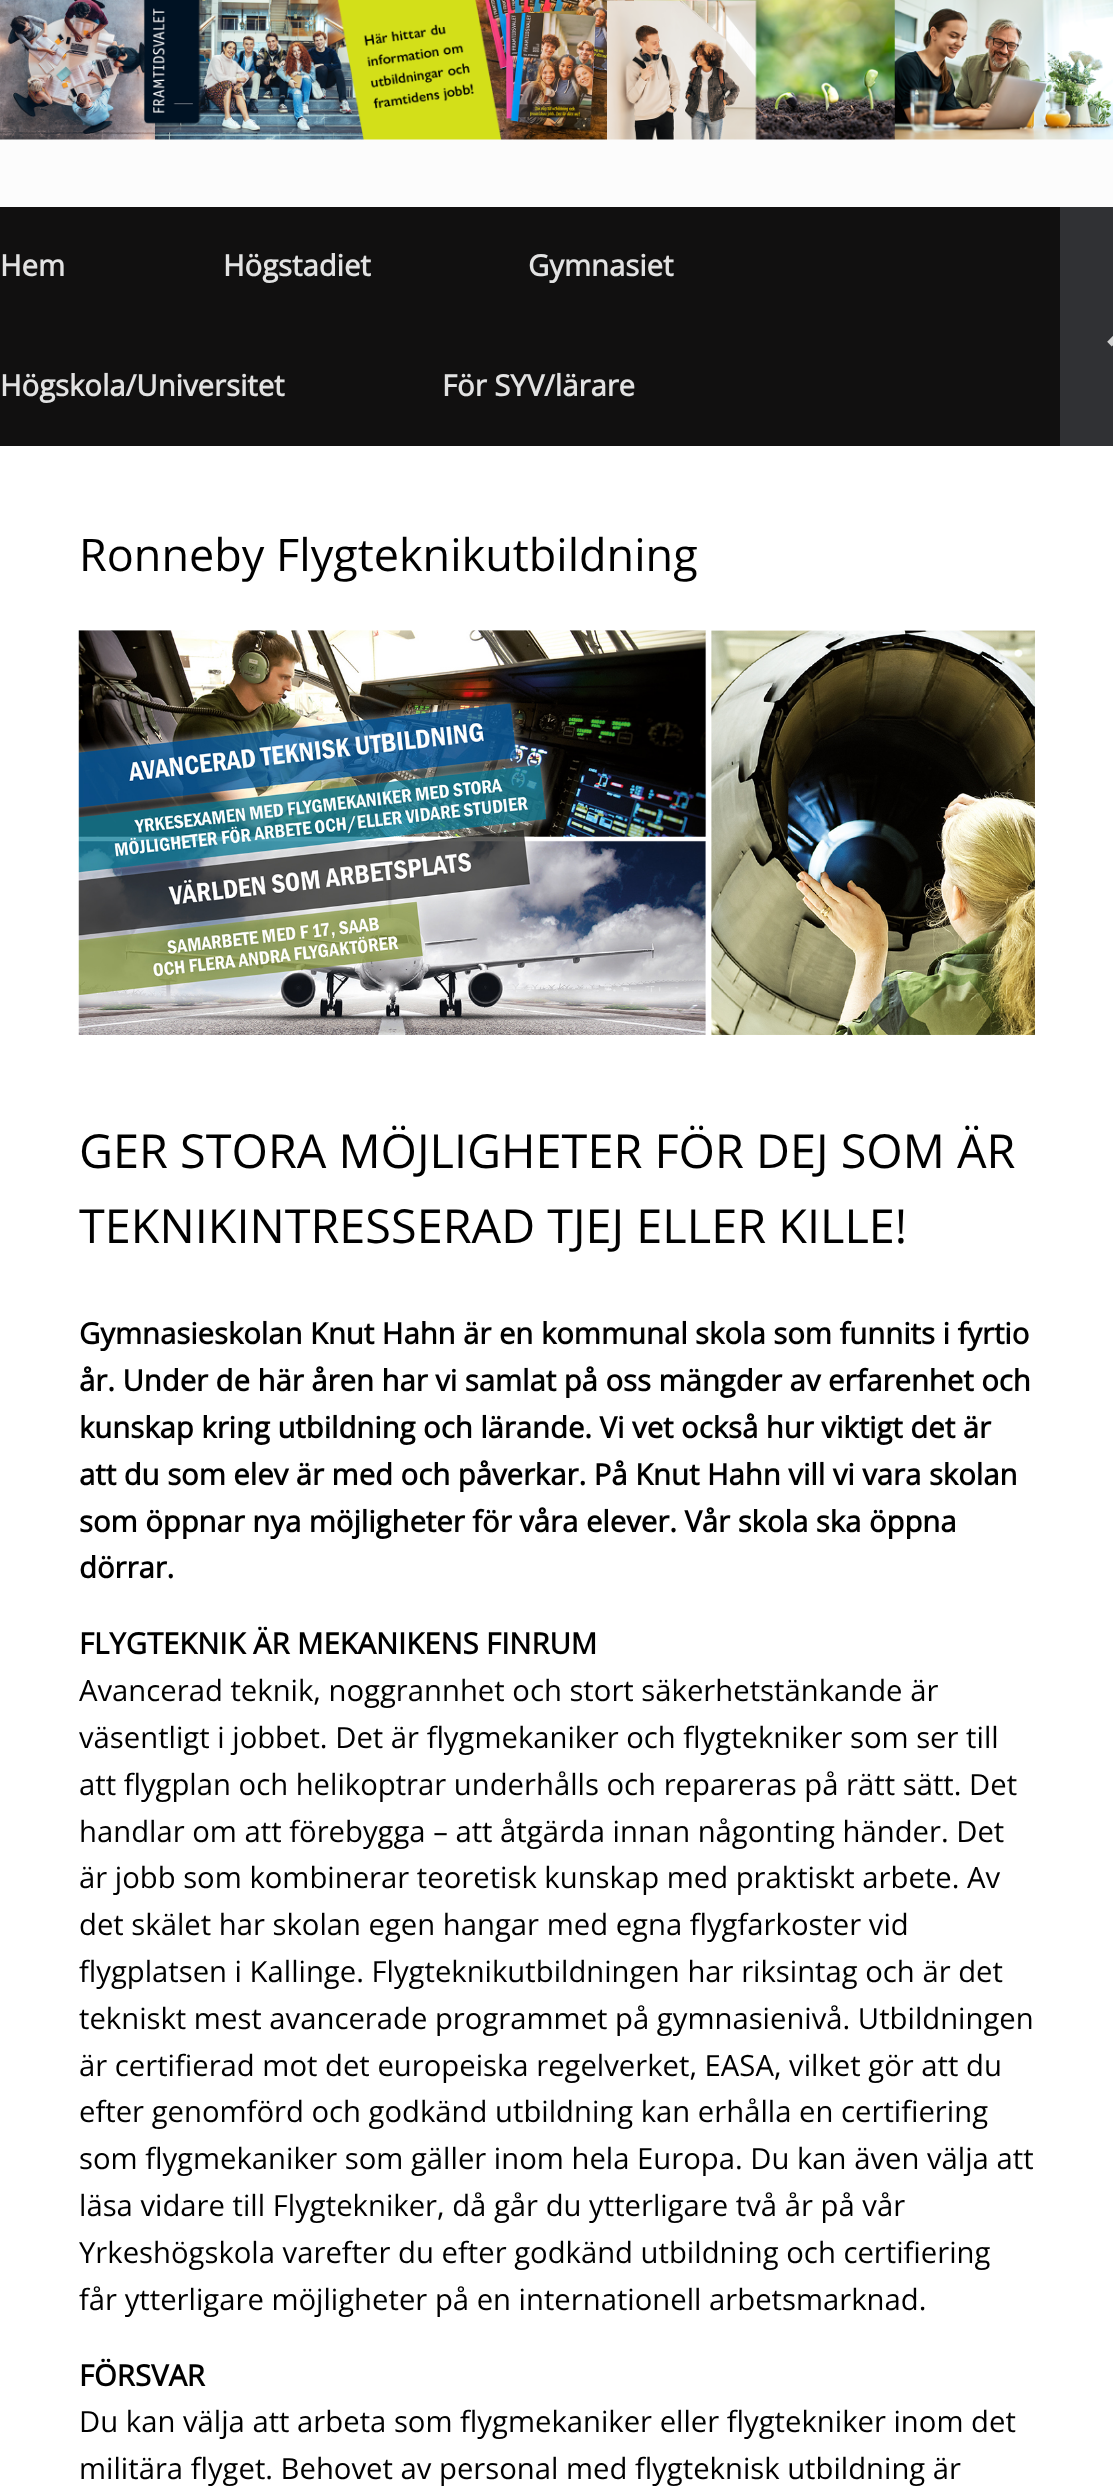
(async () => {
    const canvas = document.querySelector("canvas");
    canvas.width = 1113;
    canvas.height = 2490;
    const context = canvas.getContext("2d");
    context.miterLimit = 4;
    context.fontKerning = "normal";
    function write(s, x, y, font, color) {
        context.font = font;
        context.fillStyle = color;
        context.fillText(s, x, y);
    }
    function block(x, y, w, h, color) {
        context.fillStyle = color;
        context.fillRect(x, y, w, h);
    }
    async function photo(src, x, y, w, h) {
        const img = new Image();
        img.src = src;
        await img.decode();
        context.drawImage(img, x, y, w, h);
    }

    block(0, 0, 1113, 2490, "rgb(252, 252, 252)");
    await photo("media/1.png", 0, 0, 1113, 140);
    block(0, 207, 1060, 239, "rgb(17, 16, 16)");
    write("Hem", 0, 276, "bold 29.25px Open Sans", "rgb(226, 226, 226)");
    write("Högstadiet", 223, 276, "bold 29.25px Open Sans", "rgb(226, 226, 226)");
    write("Gymnasiet", 528, 276, "bold 29.25px Open Sans", "rgb(226, 226, 226)");
    write("Högskola/Universitet", 0, 396, "bold 29.25px Open Sans", "rgb(226, 226, 226)");
    write("För SYV/lärare", 442, 396, "bold 29.25px Open Sans", "rgb(226, 226, 226)");
    block(1060, 207, 53, 239, "rgb(48, 49, 52)");
    await photo("media/2.png", 1107, 336, 6, 11);
    block(0, 446, 1113, 2044, "rgb(255, 255, 255)");
    write("Ronneby Flygteknikutbildning", 79, 571, "45px Open Sans", "rgb(0, 0, 0)");
    await photo("media/3.png", 78, 630, 957, 405);
    write("GER STORA MÖJLIGHETER FÖR DEJ SOM ÄR", 79, 1168, "46.8px Open Sans", "rgb(0, 0, 0)");
    write("TEKNIKINTRESSERAD TJEJ ELLER KILLE!", 79, 1243, "46.8px Open Sans", "rgb(0, 0, 0)");
    write("Gymnasieskolan Knut Hahn är en kommunal skola som funnits i fyrtio", 79, 1344, "bold 29.25px Open Sans", "rgb(0, 0, 0)");
    write("år. Under de här åren har vi samlat på oss mängder av erfarenhet och", 79, 1391, "bold 29.25px Open Sans", "rgb(0, 0, 0)");
    write("kunskap kring utbildning och lärande. Vi vet också hur viktigt det är", 79, 1438, "bold 29.25px Open Sans", "rgb(0, 0, 0)");
    write("att du som elev är med och påverkar. På Knut Hahn vill vi vara skolan", 79, 1485, "bold 29.25px Open Sans", "rgb(0, 0, 0)");
    write("som öppnar nya möjligheter för våra elever. Vår skola ska öppna", 79, 1532, "bold 29.25px Open Sans", "rgb(0, 0, 0)");
    write("dörrar.", 79, 1578, "bold 29.25px Open Sans", "rgb(0, 0, 0)");
    write("FLYGTEKNIK ÄR MEKANIKENS FINRUM", 79, 1654, "bold 29.25px Open Sans", "rgb(0, 0, 0)");
    write("Avancerad teknik, noggrannhet och stort säkerhetstänkande är", 79, 1701, "29.25px Open Sans", "rgb(0, 0, 0)");
    write("väsentligt i jobbet. Det är flygmekaniker och flygtekniker som ser till", 79, 1748, "29.25px Open Sans", "rgb(0, 0, 0)");
    write("att flygplan och helikoptrar underhålls och repareras på rätt sätt. Det", 79, 1795, "29.25px Open Sans", "rgb(0, 0, 0)");
    write("handlar om att förebygga – att åtgärda innan någonting händer. Det", 79, 1842, "29.25px Open Sans", "rgb(0, 0, 0)");
    write("är jobb som kombinerar teoretisk kunskap med praktiskt arbete. Av", 79, 1888, "29.25px Open Sans", "rgb(0, 0, 0)");
    write("det skälet har skolan egen hangar med egna flygfarkoster vid", 79, 1935, "29.25px Open Sans", "rgb(0, 0, 0)");
    write("flygplatsen i Kallinge. Flygteknikutbildningen har riksintag och är det", 79, 1982, "29.25px Open Sans", "rgb(0, 0, 0)");
    write("tekniskt mest avancerade programmet på gymnasienivå. Utbildningen", 79, 2029, "29.25px Open Sans", "rgb(0, 0, 0)");
    write("är certifierad mot det europeiska regelverket, EASA, vilket gör att du", 79, 2076, "29.25px Open Sans", "rgb(0, 0, 0)");
    write("efter genomförd och godkänd utbildning kan erhålla en certifiering", 79, 2122, "29.25px Open Sans", "rgb(0, 0, 0)");
    write("som flygmekaniker som gäller inom hela Europa. Du kan även välja att", 79, 2169, "29.25px Open Sans", "rgb(0, 0, 0)");
    write("läsa vidare till Flygtekniker, då går du ytterligare två år på vår", 79, 2216, "29.25px Open Sans", "rgb(0, 0, 0)");
    write("Yrkeshögskola varefter du efter godkänd utbildning och certifiering", 79, 2263, "29.25px Open Sans", "rgb(0, 0, 0)");
    write("får ytterligare möjligheter på en internationell arbetsmarknad.", 79, 2310, "29.25px Open Sans", "rgb(0, 0, 0)");
    write("FÖRSVAR", 79, 2386, "bold 29.25px Open Sans", "rgb(0, 0, 0)");
    write("Du kan välja att arbeta som flygmekaniker eller flygtekniker inom det", 79, 2432, "29.25px Open Sans", "rgb(0, 0, 0)");
    write("militära flyget. Behovet av personal med flygteknisk utbildning är", 79, 2479, "29.25px Open Sans", "rgb(0, 0, 0)");
})();
